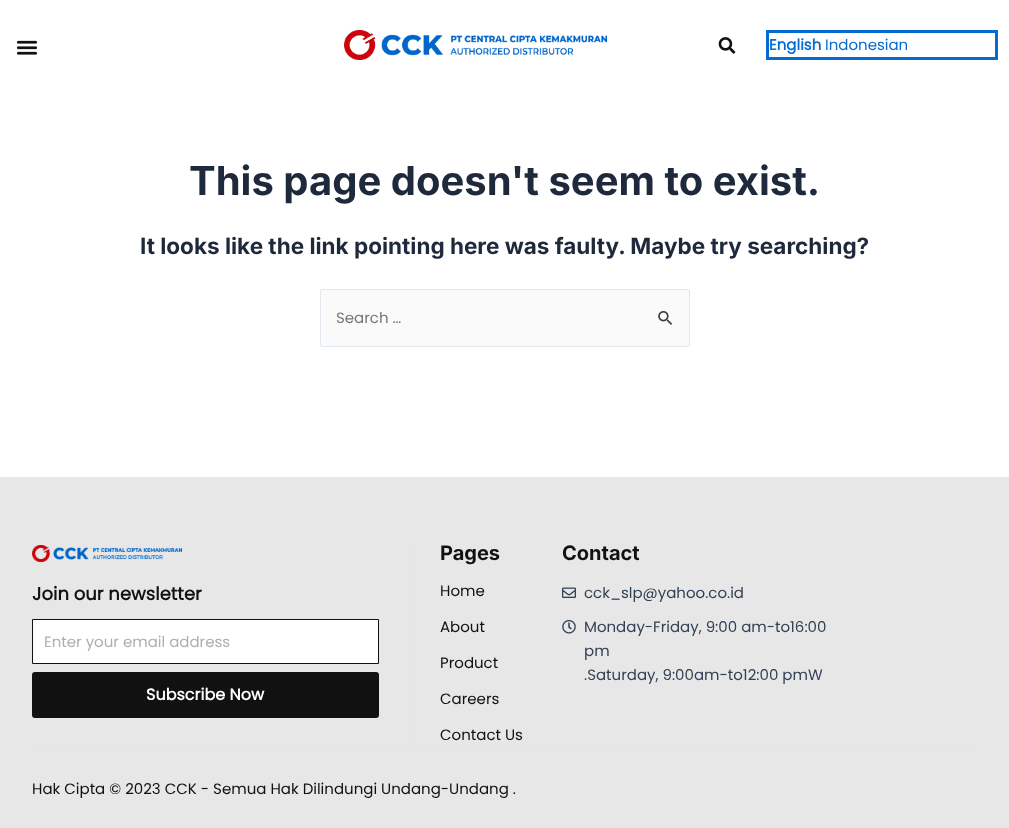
(async () => {
    const canvas = document.querySelector("canvas");
    canvas.width = 1009;
    canvas.height = 828;
    const context = canvas.getContext("2d");
    context.miterLimit = 4;
    context.fontKerning = "normal";
    function write(s, x, y, font, color) {
        context.font = font;
        context.fillStyle = color;
        context.fillText(s, x, y);
    }
    function block(x, y, w, h, color) {
        context.fillStyle = color;
        context.fillRect(x, y, w, h);
    }
    function card(x, y, w, h, r, color) {
        context.fillStyle = color;
        context.beginPath();
        context.roundRect(x, y, w, h, r);
        context.fill();
    }
    async function photo(src, x, y, w, h) {
        const img = new Image();
        img.src = src;
        await img.decode();
        context.drawImage(img, x, y, w, h);
    }

    block(0, 0, 1009, 828, "rgb(255, 255, 255)");
    await photo("media/1.png", 16, 40, 22, 15);
    await photo("media/2.png", 344, 30, 263, 30);
    await photo("media/3.png", 718, 37, 18, 17);
    context.strokeStyle = "rgb(4, 107, 210)";
    context.lineWidth = 3;
    context.strokeRect(767.5, 31.5, 229, 27);
    write("English", 769, 50, "bold 15px Poppins", "rgb(4, 107, 210)");
    write("Indonesian", 825, 50, "15px Poppins", "rgb(4, 107, 210)");
    write("This page doesn't seem to exist.", 189, 195, "bold 40px Inter", "rgb(30, 41, 59)");
    write("It looks like the link pointing here was faulty. Maybe try searching?", 140, 254, "bold 22.5px Inter", "rgb(30, 41, 59)");
    context.fillStyle = "rgb(250, 250, 250)";
    context.beginPath();
    context.roundRect(320.5, 289.5, 369, 57, 1.5);
    context.fill();
    context.strokeStyle = "rgb(226, 232, 240)";
    context.lineWidth = 1;
    context.stroke();
    write("Search …", 336, 323, "15px Poppins", "rgb(117, 117, 117)");
    await photo("media/4.png", 658, 311, 15, 14);
    block(0, 477, 1009, 351, "rgb(231, 231, 231)");
    block(409, 541, 1, 208, "rgb(232, 228, 228)");
    block(32, 748, 945, 1, "rgb(232, 228, 228)");
    await photo("media/5.png", 32, 545, 150, 17);
    write("Join our newsletter", 32, 600, "bold 18px Poppins", "rgb(17, 17, 17)");
    context.fillStyle = "rgb(255, 255, 255)";
    context.beginPath();
    context.rect(32.5, 619.5, 346, 44);
    context.fill();
    context.strokeStyle = "rgb(17, 17, 17)";
    context.stroke();
    write("Enter your email address", 44, 647, "15px Poppins", "rgb(175, 175, 175)");
    card(32, 672, 347, 46, 3, "rgb(17, 17, 17)");
    write("Subscribe Now", 146, 700, "bold 16px Poppins", "rgb(255, 255, 255)");
    write("Pages", 440, 560, "bold 20px Inter", "rgb(17, 17, 17)");
    write("Home", 440, 596, "15px Poppins", "rgb(17, 17, 17)");
    write("About", 440, 632, "15px Poppins", "rgb(17, 17, 17)");
    write("Product", 440, 668, "15px Poppins", "rgb(17, 17, 17)");
    write("Careers", 440, 704, "15px Poppins", "rgb(17, 17, 17)");
    write("Contact Us", 440, 740, "15px Poppins", "rgb(17, 17, 17)");
    write("Contact", 562, 560, "bold 20px Inter", "rgb(17, 17, 17)");
    await photo("media/6.png", 562, 587, 14, 11);
    write("cck_slp@yahoo.co.id", 584, 598, "15px Poppins", "rgb(51, 65, 85)");
    await photo("media/7.png", 562, 620, 14, 14);
    write("Monday-Friday, 9:00 am-to16:00", 584, 632, "15px Poppins", "rgb(51, 65, 85)");
    write("pm", 584, 656, "15px Poppins", "rgb(51, 65, 85)");
    write(".Saturday, 9:00am-to12:00 pmW", 584, 680, "15px Poppins", "rgb(51, 65, 85)");
    write("Hak Cipta © 2023 CCK - Semua Hak Dilindungi Undang-Undang .", 32, 794, "15px Poppins", "rgb(17, 17, 17)");
})();
